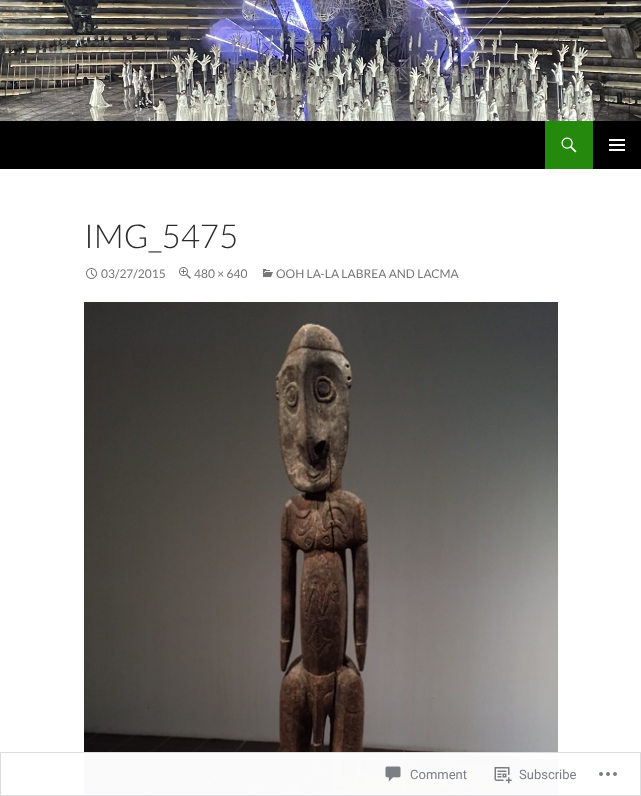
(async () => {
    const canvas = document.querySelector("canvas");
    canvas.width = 641;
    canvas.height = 796;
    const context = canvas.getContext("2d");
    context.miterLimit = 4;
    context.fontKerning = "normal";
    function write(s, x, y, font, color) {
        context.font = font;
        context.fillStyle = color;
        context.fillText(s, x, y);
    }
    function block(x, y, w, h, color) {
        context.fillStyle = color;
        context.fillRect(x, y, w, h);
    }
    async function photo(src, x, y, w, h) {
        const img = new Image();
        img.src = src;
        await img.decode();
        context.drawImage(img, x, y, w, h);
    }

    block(0, 0, 641, 796, "rgb(255, 255, 255)");
    await photo("media/1.png", 0, 0, 641, 121);
    block(0, 121, 641, 48, "rgb(0, 0, 0)");
    block(545, 121, 48, 48, "rgb(36, 137, 13)");
    await photo("media/2.png", 561, 137, 16, 16);
    await photo("media/3.png", 609, 139, 16, 12);
    write("IMG_5475", 84, 248, "300 33px Lato", "rgb(43, 43, 43)");
    await photo("media/4.png", 86, 268, 11, 11);
    write("03/27/2015", 101, 278, "12px Lato", "rgb(118, 118, 118)");
    await photo("media/5.png", 179, 267, 12, 12);
    write("480 × 640", 194, 278, "12px Lato", "rgb(118, 118, 118)");
    await photo("media/6.png", 263, 269, 10, 8);
    write("OOH LA-LA LABREA AND LACMA", 276, 278, "12px Lato", "rgb(118, 118, 118)");
    await photo("media/7.png", 84, 302, 474, 494);
    block(84, 752, 474, 44, "rgba(255, 255, 255, 0.98)");
    context.strokeStyle = "rgba(220, 220, 222, 0.98)";
    context.strokeRect(0.5, 752.5, 640, 43);
    await photo("media/8.png", 385, 766, 16, 16);
    write("Comment", 410, 779, "13px Roboto", "rgb(123, 127, 132)");
    await photo("media/9.png", 494, 767, 18, 17);
    write("Subscribe", 519, 779, "13px Roboto", "rgb(123, 127, 132)");
    await photo("media/10.png", 599, 772, 18, 4);
})();
